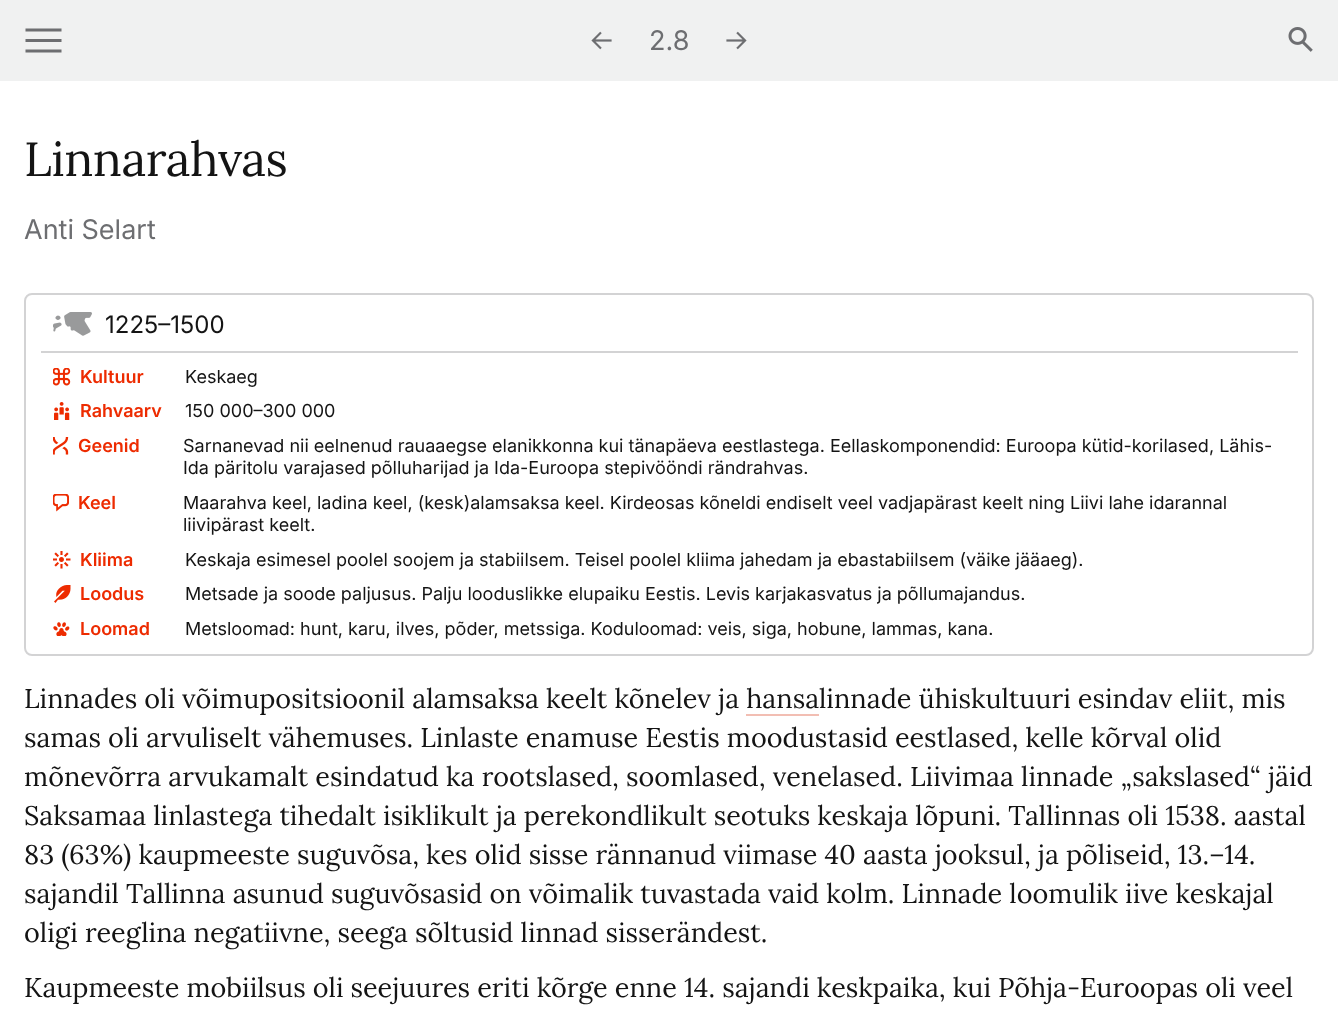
(async () => {
    const canvas = document.querySelector("canvas");
    canvas.width = 1338;
    canvas.height = 1014;
    const context = canvas.getContext("2d");
    context.miterLimit = 4;
    context.fontKerning = "normal";
    function write(s, x, y, font, color) {
        context.font = font;
        context.fillStyle = color;
        context.fillText(s, x, y);
    }
    function block(x, y, w, h, color) {
        context.fillStyle = color;
        context.fillRect(x, y, w, h);
    }
    async function photo(src, x, y, w, h) {
        const img = new Image();
        img.src = src;
        await img.decode();
        context.drawImage(img, x, y, w, h);
    }

    block(0, 0, 1338, 1014, "rgb(255, 255, 255)");
    block(0, 0, 1338, 81, "rgb(240, 241, 241)");
    context.beginPath();
    context.moveTo(61.5, 40.5);
    context.lineTo(25.5, 40.5);
    context.moveTo(61.5, 30);
    context.lineTo(25.5, 30);
    context.moveTo(61.5, 51);
    context.lineTo(25.5, 51);
    context.strokeStyle = "rgb(109, 110, 113)";
    context.lineWidth = 3;
    context.stroke();
    await photo("media/1.png", 591, 31, 21, 19);
    write("2.8", 649, 50, "27px Inter", "rgb(109, 110, 113)");
    await photo("media/2.png", 726, 31, 21, 19);
    await photo("media/3.png", 1288, 27, 25, 25);
    context.letterSpacing = "-0.5px";
    write("Linnarahvas", 24, 176, "48px Lora", "rgb(20, 20, 20)");
    context.letterSpacing = "0px";
    write("Anti Selart", 24, 239, "27px Inter", "rgb(109, 110, 113)");
    context.beginPath();
    context.roundRect(25, 294, 1288, 361, 7);
    context.strokeStyle = "rgb(211, 211, 212)";
    context.lineWidth = 2;
    context.stroke();
    block(41, 351, 1257, 2, "rgb(211, 211, 212)");
    await photo("media/4.png", 53, 312, 39, 24);
    write("1225–1500", 105, 333, "24px Inter", "rgb(20, 20, 20)");
    await photo("media/5.png", 53, 368, 18, 18);
    write("Kultuur", 80, 383, "600 18px Inter", "rgb(237, 43, 0)");
    write("Keskaeg", 185, 383, "18px Inter", "rgb(20, 20, 20)");
    await photo("media/6.png", 54, 402, 16, 18);
    write("Rahvaarv", 80, 417, "600 18px Inter", "rgb(237, 43, 0)");
    write("150 000–300 000", 185, 417, "18px Inter", "rgb(20, 20, 20)");
    await photo("media/7.png", 53, 437, 16, 18);
    write("Geenid", 78, 452, "600 18px Inter", "rgb(237, 43, 0)");
    write("Sarnanevad nii eelnenud rauaaegse elanikkonna kui tänapäeva eestlastega. Eellaskomponendid: Euroopa kütid-korilased, Lähis-", 183, 452, "18px Inter", "rgb(20, 20, 20)");
    write("Ida päritolu varajased põlluharijad ja Ida-Euroopa stepivööndi rändrahvas.", 183, 474, "18px Inter", "rgb(20, 20, 20)");
    await photo("media/8.png", 53, 494, 16, 18);
    write("Keel", 78, 509, "600 18px Inter", "rgb(237, 43, 0)");
    write("Maarahva keel, ladina keel, (kesk)alamsaksa keel. Kirdeosas kõneldi endiselt veel vadjapärast keelt ning Liivi lahe idarannal", 183, 509, "18px Inter", "rgb(20, 20, 20)");
    write("liivipärast keelt.", 183, 531, "18px Inter", "rgb(20, 20, 20)");
    await photo("media/9.png", 53, 551, 18, 18);
    write("Kliima", 80, 566, "600 18px Inter", "rgb(237, 43, 0)");
    write("Keskaja esimesel poolel soojem ja stabiilsem. Teisel poolel kliima jahedam ja ebastabiilsem (väike jääaeg).", 185, 566, "18px Inter", "rgb(20, 20, 20)");
    await photo("media/10.png", 54, 585, 17, 18);
    write("Loodus", 80, 600, "600 18px Inter", "rgb(237, 43, 0)");
    write("Metsade ja soode paljusus. Palju looduslikke elupaiku Eestis. Levis karjakasvatus ja põllumajandus.", 185, 600, "18px Inter", "rgb(20, 20, 20)");
    await photo("media/11.png", 53, 622, 17, 14);
    write("Loomad", 80, 635, "600 18px Inter", "rgb(237, 43, 0)");
    write("Metsloomad: hunt, karu, ilves, põder, metssiga. Koduloomad: veis, siga, hobune, lammas, kana.", 185, 635, "18px Inter", "rgb(20, 20, 20)");
    write("Linnades oli võimupositsioonil alamsaksa keelt kõnelev ja hansa", 24, 708, "27px Lora", "rgb(20, 20, 20)");
    write("linnade ühiskultuuri esindav eliit, mis", 819, 708, "27px Lora", "rgb(20, 20, 20)");
    block(746, 714, 73, 2, "rgb(242, 190, 179)");
    write("samas oli arvuliselt vähemuses. Linlaste enamuse Eestis moodustasid eestlased, kelle kõrval olid", 24, 747, "27px Lora", "rgb(20, 20, 20)");
    write("mõnevõrra arvukamalt esindatud ka rootslased, soomlased, venelased. Liivimaa linnade „sakslased“ jäid", 24, 786, "27px Lora", "rgb(20, 20, 20)");
    write("Saksamaa linlastega tihedalt isiklikult ja perekondlikult seotuks keskaja lõpuni. Tallinnas oli 1538. aastal", 24, 825, "27px Lora", "rgb(20, 20, 20)");
    write("83 (63%) kaupmeeste suguvõsa, kes olid sisse rännanud viimase 40 aasta jooksul, ja põliseid, 13.–14.", 24, 864, "27px Lora", "rgb(20, 20, 20)");
    write("sajandil Tallinna asunud suguvõsasid on võimalik tuvastada vaid kolm. Linnade loomulik iive keskajal", 24, 903, "27px Lora", "rgb(20, 20, 20)");
    write("oligi reeglina negatiivne, seega sõltusid linnad sisserändest.", 24, 942, "27px Lora", "rgb(20, 20, 20)");
    write("Kaupmeeste mobiilsus oli seejuures eriti kõrge enne 14. sajandi keskpaika, kui Põhja-Euroopas oli veel", 24, 997, "27px Lora", "rgb(20, 20, 20)");
})();
